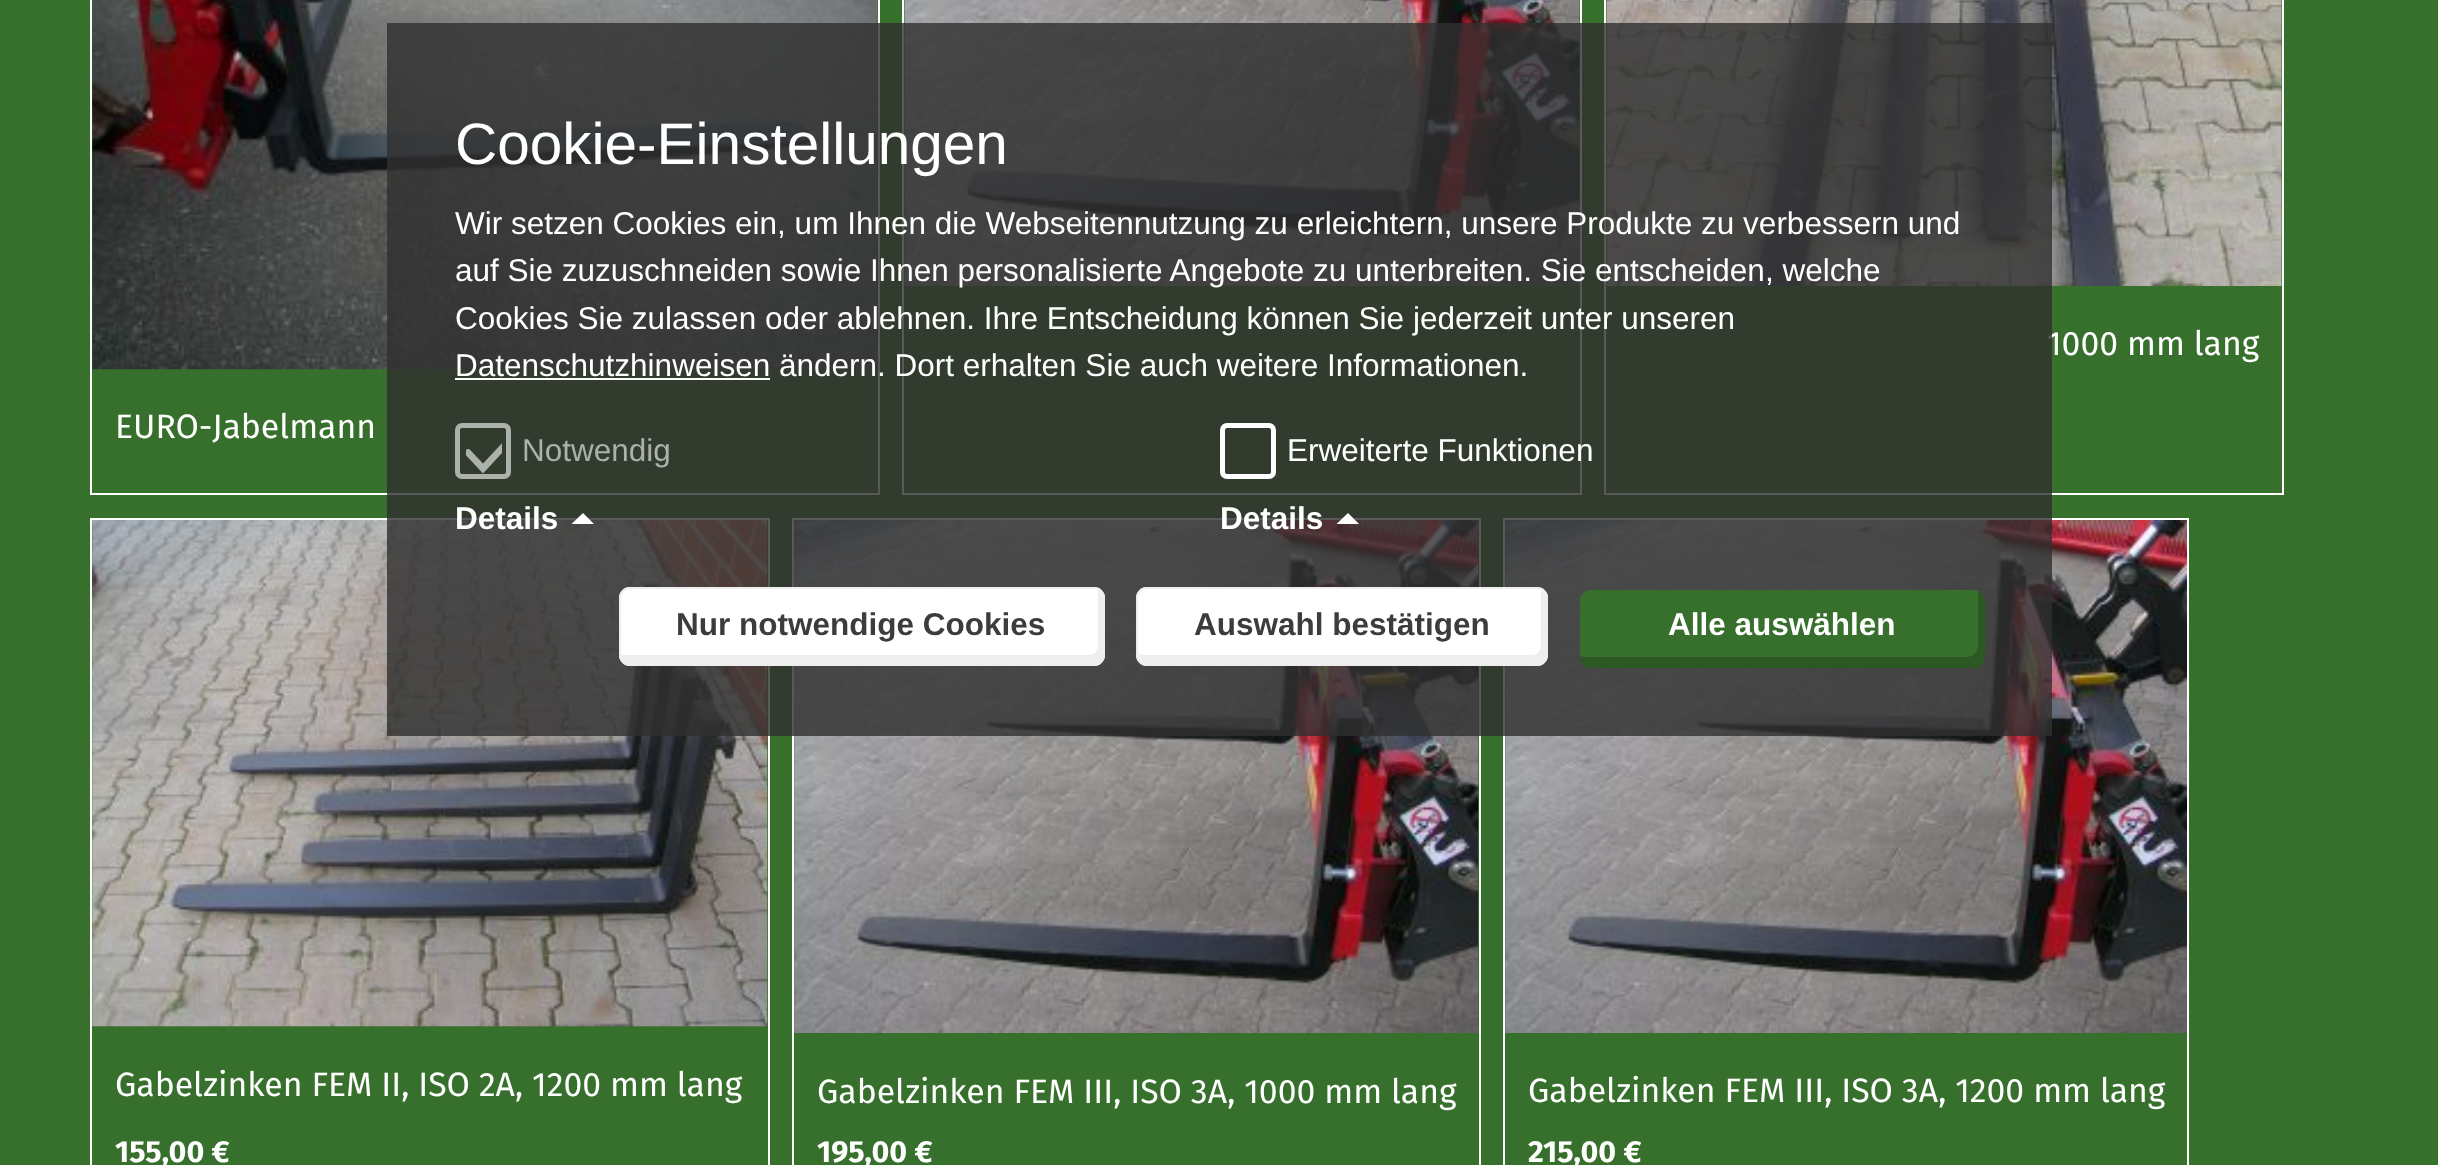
(async () => {
    const canvas = document.querySelector("canvas");
    canvas.width = 2438;
    canvas.height = 1165;
    const context = canvas.getContext("2d");
    context.miterLimit = 4;
    context.fontKerning = "normal";
    function write(s, x, y, font, color) {
        context.font = font;
        context.fillStyle = color;
        context.fillText(s, x, y);
    }
    function block(x, y, w, h, color) {
        context.fillStyle = color;
        context.fillRect(x, y, w, h);
    }
    function card(x, y, w, h, r, color) {
        context.fillStyle = color;
        context.beginPath();
        context.roundRect(x, y, w, h, r);
        context.fill();
    }
    async function photo(src, x, y, w, h) {
        const img = new Image();
        img.src = src;
        await img.decode();
        context.drawImage(img, x, y, w, h);
    }

    block(0, 0, 2438, 1165, "rgb(55, 112, 44)");
    context.strokeStyle = "rgb(255, 255, 255)";
    context.lineWidth = 2;
    context.strokeRect(903, -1, 678, 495);
    await photo("media/1.png", 904, 0, 676, 286);
    context.strokeRect(1605, -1, 678, 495);
    await photo("media/2.png", 1606, 0, 676, 286);
    write("1000 mm lang", 2047, 355, "33.75px Fira Sans", "rgb(255, 255, 255)");
    context.strokeRect(91, -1, 788, 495);
    await photo("media/3.png", 92, 0, 786, 370);
    context.strokeRect(91, 519, 678, 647);
    await photo("media/4.png", 92, 520, 676, 507);
    context.strokeRect(793, 519, 687, 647);
    await photo("media/5.png", 794, 520, 685, 513);
    context.strokeRect(1504, 519, 684, 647);
    await photo("media/6.png", 1505, 520, 682, 513);
    block(387, 23, 1665, 713, "rgba(48, 48, 48, 0.8)");
    write("Cookie-Einstellungen", 455, 164, "58.5px Liberation Sans", "rgb(255, 255, 255)");
    write("Wir setzen Cookies ein, um Ihnen die Webseitennutzung zu erleichtern, unsere Produkte zu verbessern und", 455, 234, "31.5px Liberation Sans", "rgb(255, 255, 255)");
    write("auf Sie zuzuschneiden sowie Ihnen personalisierte Angebote zu unterbreiten. Sie entscheiden, welche", 455, 281, "31.5px Liberation Sans", "rgb(255, 255, 255)");
    write("Cookies Sie zulassen oder ablehnen. Ihre Entscheidung können Sie jederzeit unter unseren", 455, 329, "31.5px Liberation Sans", "rgb(255, 255, 255)");
    write("Datenschutzhinweisen ändern. Dort erhalten Sie auch weitere Informationen.", 455, 376, "31.5px Liberation Sans", "rgb(255, 255, 255)");
    block(455, 378, 315, 2, "rgb(255, 255, 255)");
    context.beginPath();
    context.roundRect(457.5, 425.5, 51, 51, 4.5);
    context.strokeStyle = "rgba(255, 255, 255, 0.6)";
    context.lineWidth = 5;
    context.stroke();
    write("Notwendig", 522, 461, "31.5px Liberation Sans", "rgb(173, 177, 172)");
    context.save();
    context.beginPath();
    context.rect(466, 423, 36, 54);
    context.clip();
    context.beginPath();
    context.moveTo(517.5, 431.5);
    context.lineTo(483, 468.5);
    context.lineTo(468, 452.5);
    context.strokeStyle = "rgb(173, 177, 172)";
    context.lineWidth = 6.8;
    context.lineCap = "round";
    context.stroke();
    context.restore();
    write("Details", 455, 529, "bold 31.5px Liberation Sans", "rgb(255, 255, 255)");
    context.beginPath();
    context.moveTo(594, 524);
    context.lineTo(571.5, 524);
    context.lineTo(583, 513);
    context.closePath();
    context.fill();
    context.beginPath();
    context.roundRect(1222.5, 425.5, 51, 51, 4.5);
    context.strokeStyle = "rgb(255, 255, 255)";
    context.stroke();
    write("Erweiterte Funktionen", 1287, 461, "31.5px Liberation Sans", "rgb(255, 255, 255)");
    write("Details", 1220, 529, "bold 31.5px Liberation Sans", "rgb(255, 255, 255)");
    context.beginPath();
    context.moveTo(1359, 524);
    context.lineTo(1336.5, 524);
    context.lineTo(1348, 513);
    context.closePath();
    context.fill();
    card(619, 587, 486, 79, 11, "rgb(255, 255, 255)");
    context.fillStyle = "rgb(238, 238, 238)";
    context.beginPath();
    context.moveTo(621, 654);
    context.lineTo(621, 655);
    context.bezierCurveTo(621, 660, 625, 664, 630, 664);
    context.lineTo(1094, 664);
    context.bezierCurveTo(1099, 664, 1103, 660, 1103, 655);
    context.lineTo(1103, 599);
    context.bezierCurveTo(1103, 595, 1101, 592, 1098, 591);
    context.lineTo(1098, 646);
    context.bezierCurveTo(1098, 651, 1094, 655, 1089, 655);
    context.lineTo(626, 655);
    context.bezierCurveTo(624, 655, 623, 655, 621, 654);
    context.closePath();
    context.fill();
    context.beginPath();
    context.roundRect(620, 588, 484, 77, 10);
    context.strokeStyle = "rgb(238, 238, 238)";
    context.lineWidth = 2;
    context.stroke();
    write("Nur notwendige Cookies", 676, 635, "bold 31.5px Liberation Sans", "rgb(60, 60, 60)");
    card(1136, 587, 412, 79, 11, "rgb(255, 255, 255)");
    context.fillStyle = "rgb(238, 238, 238)";
    context.beginPath();
    context.moveTo(1139, 654);
    context.lineTo(1139, 655);
    context.bezierCurveTo(1139, 660, 1143, 664, 1148, 664);
    context.lineTo(1537, 664);
    context.bezierCurveTo(1542, 664, 1546, 660, 1546, 655);
    context.lineTo(1546, 599);
    context.bezierCurveTo(1546, 595, 1544, 592, 1541, 591);
    context.lineTo(1541, 646);
    context.bezierCurveTo(1541, 651, 1537, 655, 1532, 655);
    context.lineTo(1143, 655);
    context.closePath();
    context.fill();
    context.beginPath();
    context.roundRect(1137, 588, 410, 77, 10);
    context.stroke();
    write("Auswahl bestätigen", 1194, 635, "bold 31.5px Liberation Sans", "rgb(60, 60, 60)");
    card(1580, 590, 405, 78, 11, "rgb(55, 112, 44)");
    context.fillStyle = "rgba(0, 0, 0, 0.2)";
    context.beginPath();
    context.moveTo(1580, 656);
    context.lineTo(1580, 657);
    context.bezierCurveTo(1580, 663, 1585, 668, 1591, 668);
    context.lineTo(1974, 668);
    context.bezierCurveTo(1980, 668, 1985, 663, 1985, 657);
    context.lineTo(1985, 601);
    context.bezierCurveTo(1985, 596, 1982, 592, 1978, 591);
    context.lineTo(1978, 646);
    context.bezierCurveTo(1978, 652, 1973, 657, 1966, 657);
    context.lineTo(1584, 657);
    context.closePath();
    context.fill();
    write("Alle auswählen", 1668, 635, "bold 31.5px Liberation Sans", "rgb(255, 255, 255)");
    write("EURO-Jabelmann", 115, 438, "33.75px Fira Sans", "rgb(255, 255, 255)");
    write("Gabelzinken FEM II, ISO 2A, 1200 mm lang", 115, 1096, "33.75px Fira Sans", "rgb(255, 255, 255)");
    write("155,00 €", 115, 1162, "bold 30.5px Fira Sans", "rgb(255, 255, 255)");
    write("Gabelzinken FEM III, ISO 3A, 1000 mm lang", 817, 1103, "33.75px Fira Sans", "rgb(255, 255, 255)");
    write("195,00 €", 817, 1162, "bold 30.5px Fira Sans", "rgb(255, 255, 255)");
    write("Gabelzinken FEM III, ISO 3A, 1200 mm lang", 1528, 1102, "33.75px Fira Sans", "rgb(255, 255, 255)");
    write("215,00 €", 1528, 1162, "bold 30.5px Fira Sans", "rgb(255, 255, 255)");
})();
